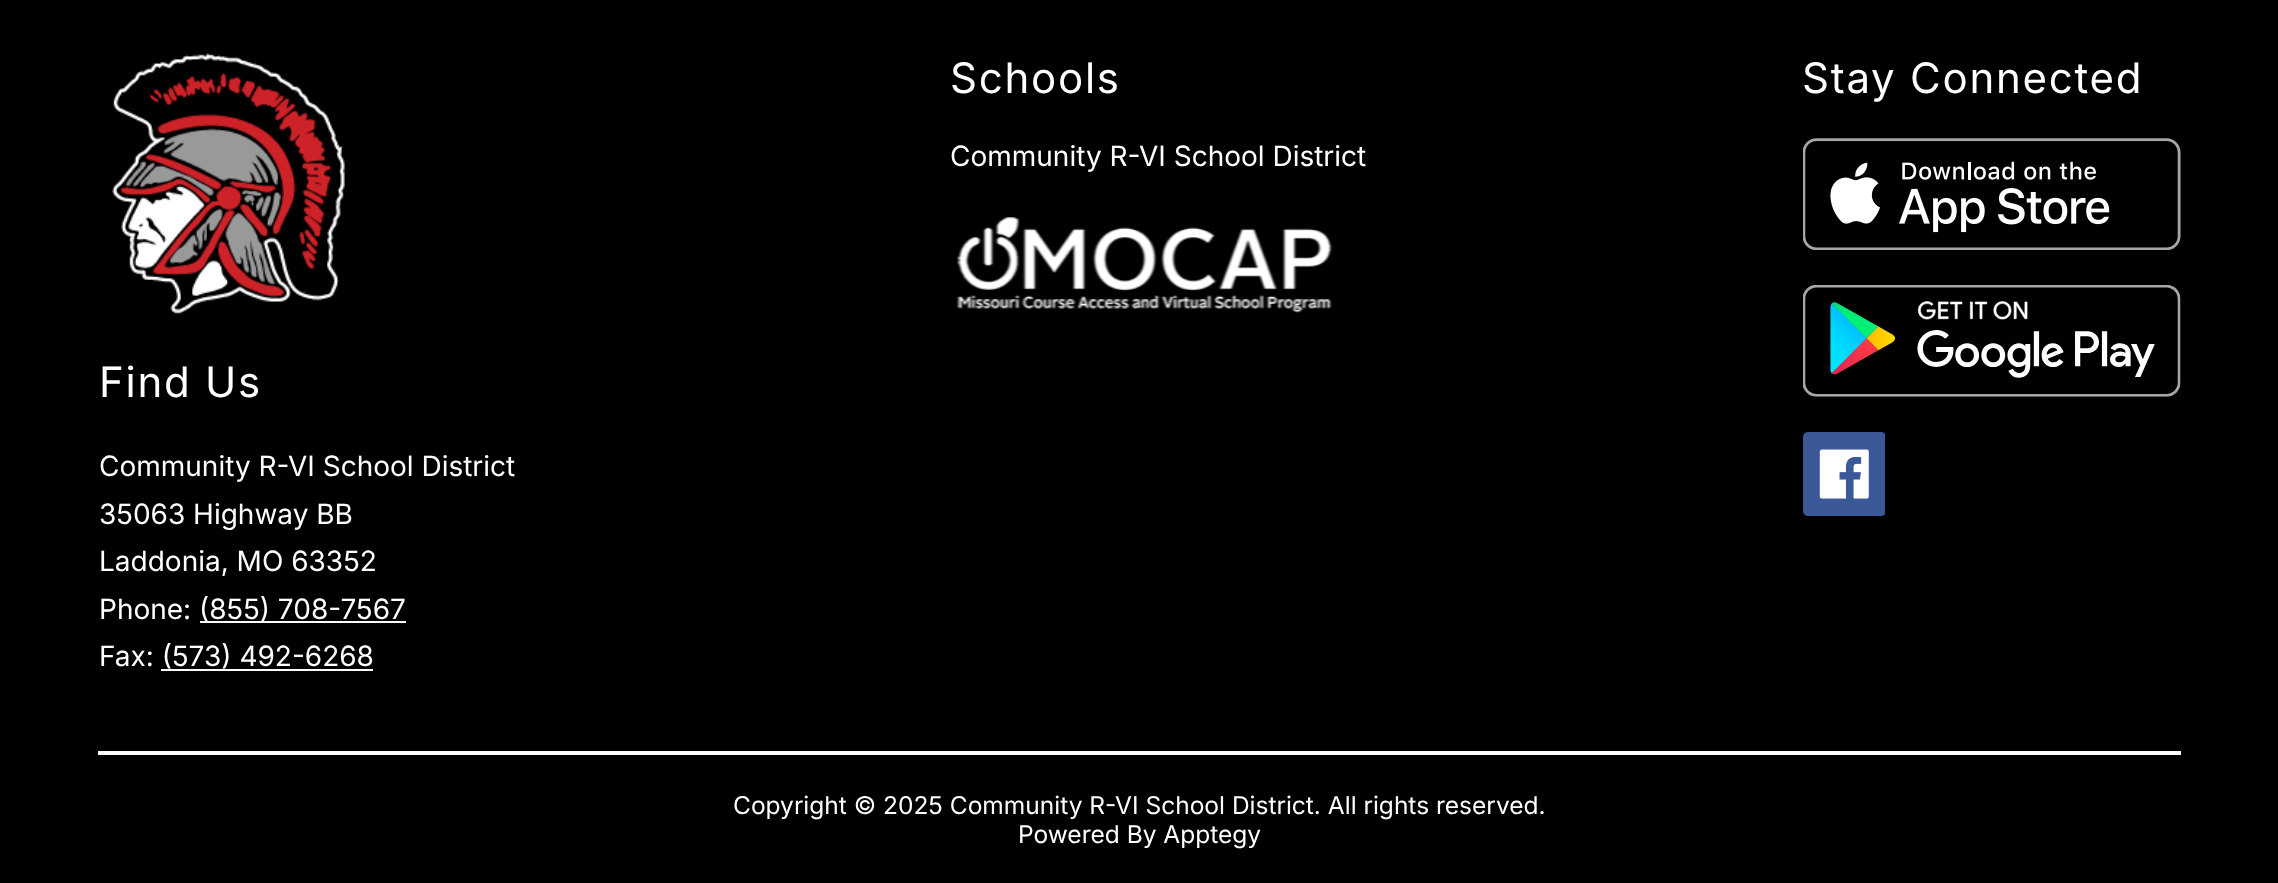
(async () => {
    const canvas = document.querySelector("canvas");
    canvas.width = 2278;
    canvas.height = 883;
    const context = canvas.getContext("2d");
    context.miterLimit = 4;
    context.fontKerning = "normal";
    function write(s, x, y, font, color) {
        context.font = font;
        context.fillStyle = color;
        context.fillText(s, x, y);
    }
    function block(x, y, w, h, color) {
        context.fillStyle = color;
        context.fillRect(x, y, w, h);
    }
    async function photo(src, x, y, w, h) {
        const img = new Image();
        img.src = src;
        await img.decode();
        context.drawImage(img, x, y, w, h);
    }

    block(0, 0, 2278, 883, "rgb(0, 0, 0)");
    context.letterSpacing = "1.75px";
    write("Schools", 950, 93, "42px Inter", "rgb(255, 255, 255)");
    context.letterSpacing = "0px";
    write("Community R-VI School District", 950, 166, "28px Inter", "rgb(255, 255, 255)");
    await photo("media/1.png", 956, 217, 377, 96);
    context.letterSpacing = "1.75px";
    write("Stay Connected", 1802, 93, "42px Inter", "rgb(255, 255, 255)");
    await photo("media/2.png", 1803, 138, 378, 112);
    await photo("media/3.png", 1803, 285, 378, 112);
    await photo("media/4.png", 1803, 432, 82, 84);
    await photo("media/5.png", 112, 53, 233, 261);
    write("Find Us", 99, 397, "42px Inter", "rgb(255, 255, 255)");
    context.letterSpacing = "0px";
    write("Community R-VI School District", 99, 476, "28px Inter", "rgb(255, 255, 255)");
    write("35063 Highway BB", 99, 524, "28px Inter", "rgb(255, 255, 255)");
    write("Laddonia, MO 63352", 99, 571, "28px Inter", "rgb(255, 255, 255)");
    write("Phone:", 99, 619, "28px Inter", "rgb(255, 255, 255)");
    block(200, 621, 206, 2, "rgb(255, 255, 255)");
    write("(855) 708-7567", 199, 619, "28px Inter", "rgb(255, 255, 255)");
    write("Fax: (573) 492-6268", 99, 666, "28px Inter", "rgb(255, 255, 255)");
    block(161, 669, 212, 2, "rgb(255, 255, 255)");
    block(98, 751, 2083, 4, "rgb(255, 255, 255)");
    write("Copyright © 2025 Community R-VI School District. All rights reserved.", 733, 814, "24.5px Inter", "rgb(255, 255, 255)");
    write("Powered By Apptegy", 1018, 843, "24.5px Inter", "rgb(255, 255, 255)");
})();
